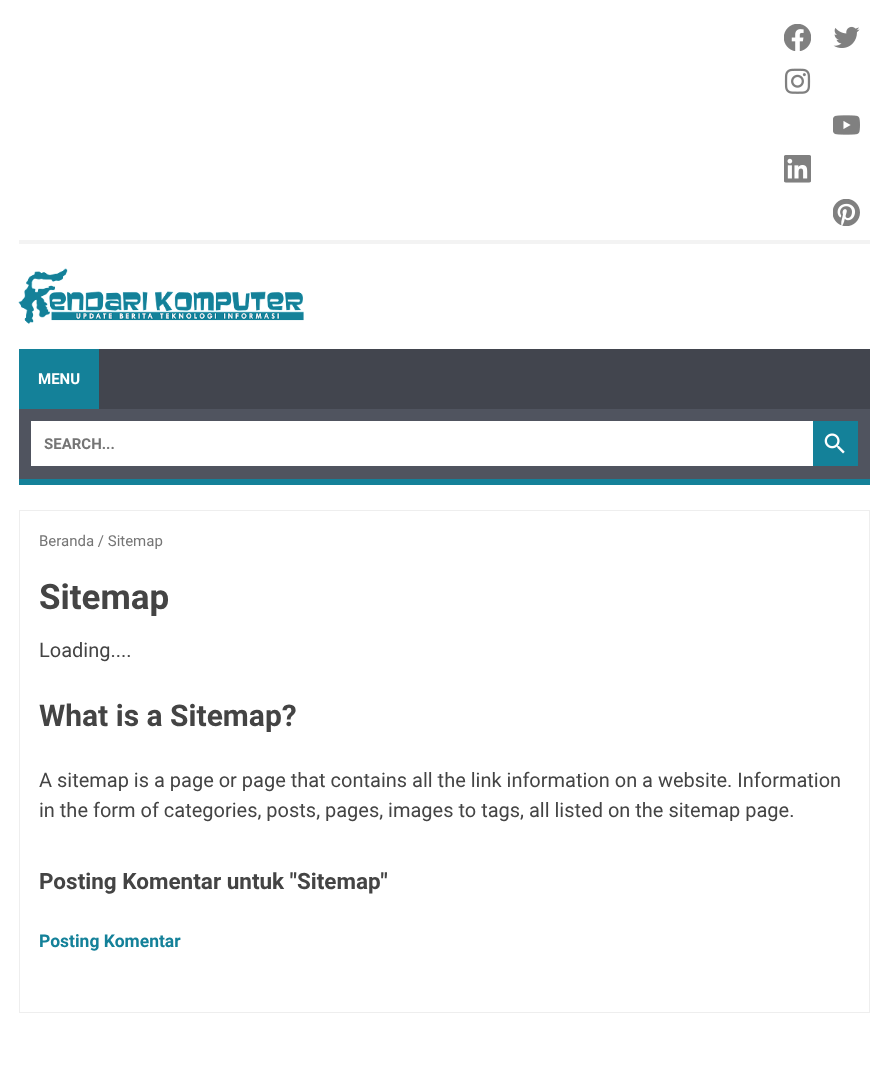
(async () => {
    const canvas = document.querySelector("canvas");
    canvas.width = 888;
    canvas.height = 1088;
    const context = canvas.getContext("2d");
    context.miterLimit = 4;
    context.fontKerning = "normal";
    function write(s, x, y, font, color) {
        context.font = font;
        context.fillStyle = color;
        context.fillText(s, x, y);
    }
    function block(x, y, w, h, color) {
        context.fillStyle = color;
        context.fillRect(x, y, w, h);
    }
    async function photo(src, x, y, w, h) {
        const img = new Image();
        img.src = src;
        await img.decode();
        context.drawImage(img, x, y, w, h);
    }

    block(0, 0, 888, 1088, "rgb(255, 255, 255)");
    block(19, 240, 851, 4, "rgb(243, 243, 243)");
    await photo("media/1.png", 784, 24, 27, 27);
    await photo("media/2.png", 833, 26, 27, 22);
    await photo("media/3.png", 784, 68, 27, 26);
    await photo("media/4.png", 833, 115, 27, 20);
    await photo("media/5.png", 784, 155, 27, 28);
    await photo("media/6.png", 833, 199, 27, 27);
    await photo("media/7.png", 18, 268, 286, 56);
    block(99, 349, 771, 60, "rgb(66, 69, 78)");
    block(19, 349, 80, 60, "rgb(20, 129, 153)");
    write("MENU", 38, 384, "bold 15px Roboto", "rgb(255, 255, 255)");
    block(19, 409, 851, 70, "rgb(80, 84, 95)");
    block(31, 421, 782, 45, "rgb(255, 255, 255)");
    write("SEARCH...", 44, 449, "bold 15px Roboto", "rgb(117, 117, 117)");
    block(813, 421, 45, 45, "rgb(20, 129, 153)");
    await photo("media/8.png", 824, 433, 21, 21);
    block(19, 479, 851, 6, "rgb(20, 129, 153)");
    context.strokeStyle = "rgb(238, 238, 238)";
    context.strokeRect(19.5, 510.5, 850, 502);
    write("Beranda / Sitemap", 39, 546, "15px Roboto", "rgb(117, 117, 117)");
    write("Sitemap", 39, 609, "bold 35px Roboto", "rgb(68, 68, 68)");
    write("Loading....", 39, 657, "20px Roboto", "rgb(68, 68, 68)");
    write("What is a Sitemap?", 39, 726, "bold 30px Roboto", "rgb(68, 68, 68)");
    write("A sitemap is a page or page that contains all the link information on a website. Information", 39, 787, "20px Roboto", "rgb(68, 68, 68)");
    write("in the form of categories, posts, pages, images to tags, all listed on the sitemap page.", 39, 817, "20px Roboto", "rgb(68, 68, 68)");
    write("Posting Komentar untuk \"Sitemap\"", 39, 889, "bold 22.5px Roboto", "rgb(68, 68, 68)");
    write("Posting Komentar", 39, 947, "bold 17.5px Roboto", "rgb(20, 129, 153)");
})();
